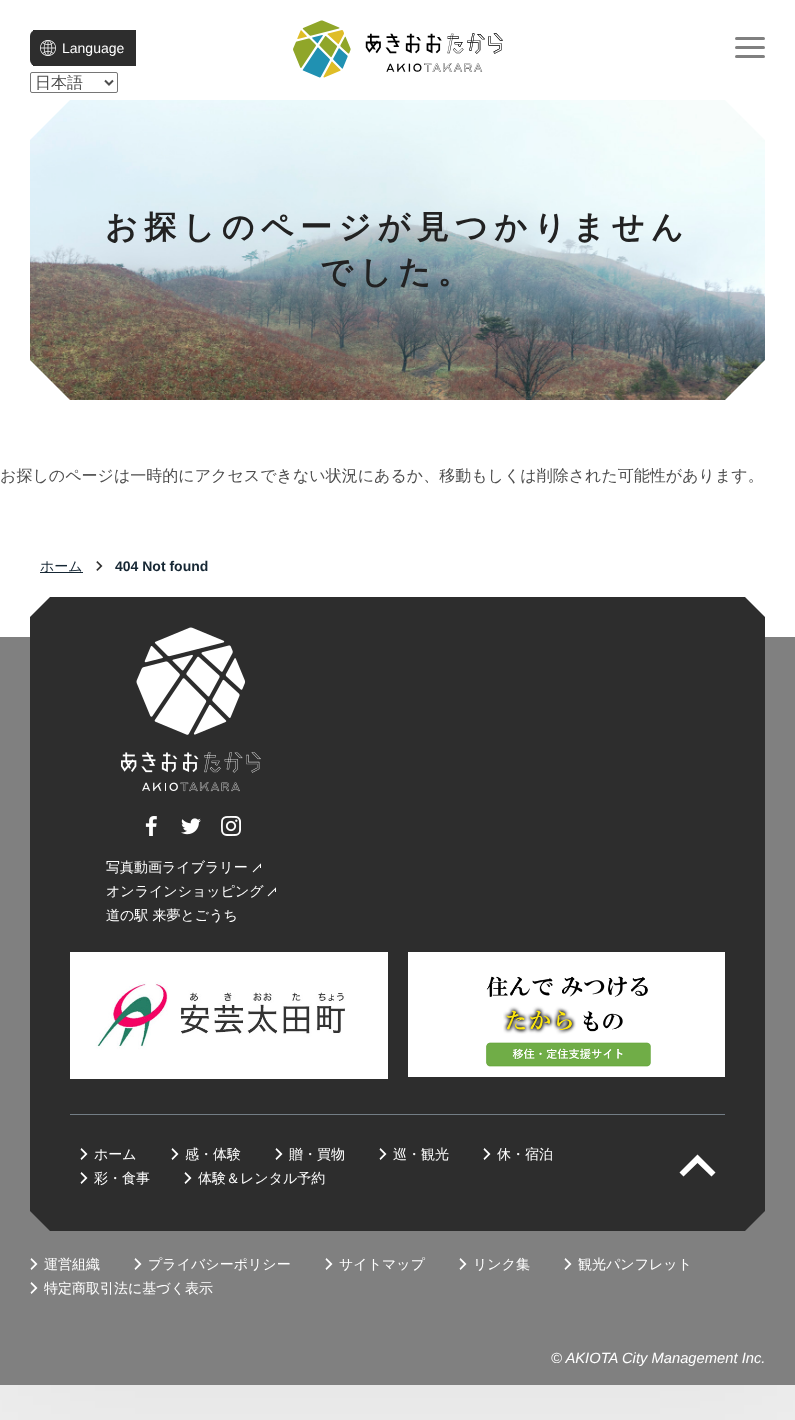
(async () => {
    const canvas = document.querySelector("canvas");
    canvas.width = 795;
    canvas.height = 1420;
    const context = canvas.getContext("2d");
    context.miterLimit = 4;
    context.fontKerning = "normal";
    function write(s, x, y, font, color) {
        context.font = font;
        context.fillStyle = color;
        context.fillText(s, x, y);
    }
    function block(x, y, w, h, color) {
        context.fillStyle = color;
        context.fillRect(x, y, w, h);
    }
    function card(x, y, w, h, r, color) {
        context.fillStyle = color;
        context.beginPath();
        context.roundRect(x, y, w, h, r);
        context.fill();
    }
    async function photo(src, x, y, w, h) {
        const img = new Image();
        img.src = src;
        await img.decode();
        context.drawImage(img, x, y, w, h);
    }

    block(0, 0, 795, 1420, "rgb(238, 238, 238)");
    context.fillStyle = "rgba(0, 0, 0, 0.05)";
    context.filter = "blur(80px)";
    context.beginPath();
    context.rect(2, 2, 791, 1381);
    context.fill();
    context.filter = "none";
    block(0, 0, 795, 637, "rgb(255, 255, 255)");
    context.fillStyle = "rgb(45, 45, 45)";
    context.beginPath();
    context.roundRect(30, 30, 106, 36, [6, 0, 0, 6]);
    context.fill();
    await photo("media/1.png", 40, 40, 16, 16);
    block(33, 30, 3, 1, "rgb(45, 45, 45)");
    block(33, 65, 3, 1, "rgb(45, 45, 45)");
    write("Language", 62, 53, "14px Liberation Sans", "rgb(255, 255, 255)");
    context.beginPath();
    context.roundRect(30.5, 72.5, 87, 20, 1.5);
    context.strokeStyle = "rgb(118, 118, 118)";
    context.stroke();
    context.beginPath();
    context.moveTo(105, 80.5);
    context.lineTo(109, 84.5);
    context.lineTo(113, 80.5);
    context.strokeStyle = "rgb(77, 77, 77)";
    context.lineWidth = 2;
    context.stroke();
    write("日本語", 35, 88, "500 16px WenQuanYi Zen Hei", "rgb(77, 77, 77)");
    await photo("media/2.png", 293, 20, 210, 58);
    card(735, 37, 30, 3, 1.5, "rgb(128, 128, 128)");
    card(735, 46, 30, 3, 1.5, "rgb(128, 128, 128)");
    card(735, 55, 30, 3, 1.5, "rgb(128, 128, 128)");
    await photo("media/3.png", 30, 100, 735, 300);
    context.fillStyle = "rgb(255, 255, 255)";
    context.beginPath();
    context.moveTo(30, 100);
    context.lineTo(70, 100);
    context.lineTo(30, 140);
    context.closePath();
    context.fill();
    context.beginPath();
    context.moveTo(725, 100);
    context.lineTo(765, 100);
    context.lineTo(765, 140);
    context.closePath();
    context.fill();
    context.letterSpacing = "6.4px";
    write("お探しのページが見つかりません", 105, 238, "bold 32px WenQuanYi Zen Hei", "rgb(34, 34, 34)");
    write("でした。", 320, 283, "bold 32px WenQuanYi Zen Hei", "rgb(34, 34, 34)");
    context.fillStyle = "rgb(255, 255, 255)";
    context.beginPath();
    context.moveTo(70, 400);
    context.lineTo(30, 400);
    context.lineTo(30, 360);
    context.closePath();
    context.fill();
    context.beginPath();
    context.moveTo(765, 400);
    context.lineTo(725, 400);
    context.lineTo(765, 360);
    context.closePath();
    context.fill();
    context.letterSpacing = "0px";
    write("お探しのページは一時的にアクセスできない状況にあるか、移動もしくは削除された可能性があります。", 0, 481, "500 16px WenQuanYi Zen Hei", "rgb(77, 77, 77)");
    await photo("media/4.png", 96, 561, 7, 10);
    block(40, 572, 43, 1, "rgb(22, 39, 52)");
    write("ホーム", 40, 571, "500 14px WenQuanYi Zen Hei", "rgb(22, 39, 52)");
    write("404 Not found", 115, 571, "bold 14px Liberation Sans", "rgb(22, 39, 52)");
    block(0, 637, 795, 748, "rgb(128, 128, 128)");
    block(30, 597, 735, 634, "rgb(45, 45, 45)");
    context.fillStyle = "rgb(255, 255, 255)";
    context.beginPath();
    context.moveTo(30, 597);
    context.lineTo(50, 597);
    context.lineTo(30, 617);
    context.closePath();
    context.fill();
    context.beginPath();
    context.moveTo(745, 597);
    context.lineTo(765, 597);
    context.lineTo(765, 617);
    context.closePath();
    context.fill();
    await photo("media/5.png", 121, 627, 140, 165);
    await photo("media/6.png", 145, 816, 12, 20);
    await photo("media/7.png", 181, 818, 20, 17);
    await photo("media/8.png", 221, 816, 20, 20);
    write("写真動画ライブラリー", 106, 872, "500 14px WenQuanYi Zen Hei", "rgb(255, 255, 255)");
    await photo("media/9.png", 252, 863, 9, 10);
    write("オンラインショッピング", 106, 896, "500 14px WenQuanYi Zen Hei", "rgb(255, 255, 255)");
    await photo("media/9.png", 267, 887, 9, 10);
    write("道の駅 来夢とごうち", 106, 920, "500 14px WenQuanYi Zen Hei", "rgb(255, 255, 255)");
    await photo("media/10.png", 70, 952, 318, 127);
    await photo("media/11.png", 408, 952, 317, 125);
    block(70, 1114, 655, 1, "rgb(115, 125, 133)");
    write("ホーム", 94, 1159, "500 14px WenQuanYi Zen Hei", "rgb(255, 255, 255)");
    context.beginPath();
    context.moveTo(81.5, 1148);
    context.lineTo(80.5, 1149.5);
    context.lineTo(85, 1154);
    context.lineTo(80.5, 1158.5);
    context.lineTo(81.5, 1160);
    context.lineTo(87.5, 1154);
    context.closePath();
    context.fill();
    write("感・体験", 185, 1159, "500 14px WenQuanYi Zen Hei", "rgb(255, 255, 255)");
    context.beginPath();
    context.moveTo(172.5, 1148);
    context.lineTo(171.5, 1149.5);
    context.lineTo(176, 1154);
    context.lineTo(171.5, 1158.5);
    context.lineTo(172.5, 1160);
    context.lineTo(178.5, 1154);
    context.closePath();
    context.fill();
    write("贈・買物", 289, 1159, "500 14px WenQuanYi Zen Hei", "rgb(255, 255, 255)");
    context.beginPath();
    context.moveTo(276.5, 1148);
    context.lineTo(275.5, 1149.5);
    context.lineTo(280, 1154);
    context.lineTo(275.5, 1158.5);
    context.lineTo(276.5, 1160);
    context.lineTo(282.5, 1154);
    context.closePath();
    context.fill();
    write("巡・観光", 393, 1159, "500 14px WenQuanYi Zen Hei", "rgb(255, 255, 255)");
    context.beginPath();
    context.moveTo(380.5, 1148);
    context.lineTo(379.5, 1149.5);
    context.lineTo(384, 1154);
    context.lineTo(379.5, 1158.5);
    context.lineTo(380.5, 1160);
    context.lineTo(386.5, 1154);
    context.closePath();
    context.fill();
    write("休・宿泊", 497, 1159, "500 14px WenQuanYi Zen Hei", "rgb(255, 255, 255)");
    context.beginPath();
    context.moveTo(484.5, 1148);
    context.lineTo(483.5, 1149.5);
    context.lineTo(488, 1154);
    context.lineTo(483.5, 1158.5);
    context.lineTo(484.5, 1160);
    context.lineTo(490.5, 1154);
    context.closePath();
    context.fill();
    write("彩・食事", 94, 1183, "500 14px WenQuanYi Zen Hei", "rgb(255, 255, 255)");
    context.beginPath();
    context.moveTo(81.5, 1172);
    context.lineTo(80.5, 1173.5);
    context.lineTo(85, 1178);
    context.lineTo(80.5, 1182.5);
    context.lineTo(81.5, 1184);
    context.lineTo(87.5, 1178);
    context.closePath();
    context.fill();
    write("体験＆レンタル予約", 198, 1183, "500 14px WenQuanYi Zen Hei", "rgb(255, 255, 255)");
    context.beginPath();
    context.moveTo(185.5, 1172);
    context.lineTo(184.5, 1173.5);
    context.lineTo(189, 1178);
    context.lineTo(184.5, 1182.5);
    context.lineTo(185.5, 1184);
    context.lineTo(191.5, 1178);
    context.closePath();
    context.fill();
    context.beginPath();
    context.moveTo(679.5, 1172.5);
    context.lineTo(683.5, 1176.5);
    context.lineTo(697.5, 1163);
    context.lineTo(711.5, 1176.5);
    context.lineTo(715.5, 1172.5);
    context.lineTo(697.5, 1154.5);
    context.closePath();
    context.fill();
    context.fillStyle = "rgb(128, 128, 128)";
    context.beginPath();
    context.moveTo(50, 1231);
    context.lineTo(30, 1231);
    context.lineTo(30, 1211);
    context.closePath();
    context.fill();
    context.beginPath();
    context.moveTo(765, 1231);
    context.lineTo(745, 1231);
    context.lineTo(765, 1211);
    context.closePath();
    context.fill();
    write("運営組織", 44, 1269, "500 14px WenQuanYi Zen Hei", "rgb(255, 255, 255)");
    context.beginPath();
    context.moveTo(31.5, 1258);
    context.lineTo(30.5, 1259.5);
    context.lineTo(35, 1264);
    context.lineTo(30.5, 1268.5);
    context.lineTo(31.5, 1270);
    context.lineTo(37.5, 1264);
    context.closePath();
    context.fill();
    write("プライバシーポリシー", 148, 1269, "500 14px WenQuanYi Zen Hei", "rgb(255, 255, 255)");
    context.beginPath();
    context.moveTo(135.5, 1258);
    context.lineTo(134.5, 1259.5);
    context.lineTo(139, 1264);
    context.lineTo(134.5, 1268.5);
    context.lineTo(135.5, 1270);
    context.lineTo(141.5, 1264);
    context.closePath();
    context.fill();
    write("サイトマップ", 339, 1269, "500 14px WenQuanYi Zen Hei", "rgb(255, 255, 255)");
    context.beginPath();
    context.moveTo(326.5, 1258);
    context.lineTo(325.5, 1259.5);
    context.lineTo(330, 1264);
    context.lineTo(325.5, 1268.5);
    context.lineTo(326.5, 1270);
    context.lineTo(332.5, 1264);
    context.closePath();
    context.fill();
    write("リンク集", 473, 1269, "500 14px WenQuanYi Zen Hei", "rgb(255, 255, 255)");
    context.beginPath();
    context.moveTo(460.5, 1258);
    context.lineTo(459.5, 1259.5);
    context.lineTo(464, 1264);
    context.lineTo(459.5, 1268.5);
    context.lineTo(460.5, 1270);
    context.lineTo(466.5, 1264);
    context.closePath();
    context.fill();
    write("観光パンフレット", 578, 1269, "500 14px WenQuanYi Zen Hei", "rgb(255, 255, 255)");
    context.beginPath();
    context.moveTo(565.5, 1258);
    context.lineTo(564.5, 1259.5);
    context.lineTo(569, 1264);
    context.lineTo(564.5, 1268.5);
    context.lineTo(565.5, 1270);
    context.lineTo(571.5, 1264);
    context.closePath();
    context.fill();
    write("特定商取引法に基づく表示", 44, 1293, "500 14px WenQuanYi Zen Hei", "rgb(255, 255, 255)");
    context.beginPath();
    context.moveTo(31.5, 1282);
    context.lineTo(30.5, 1283.5);
    context.lineTo(35, 1288);
    context.lineTo(30.5, 1292.5);
    context.lineTo(31.5, 1294);
    context.lineTo(37.5, 1288);
    context.closePath();
    context.fill();
    write("© AKIOTA City Management Inc.", 551, 1363, "italic 14.75px Liberation Sans", "rgb(255, 255, 255)");
})();
